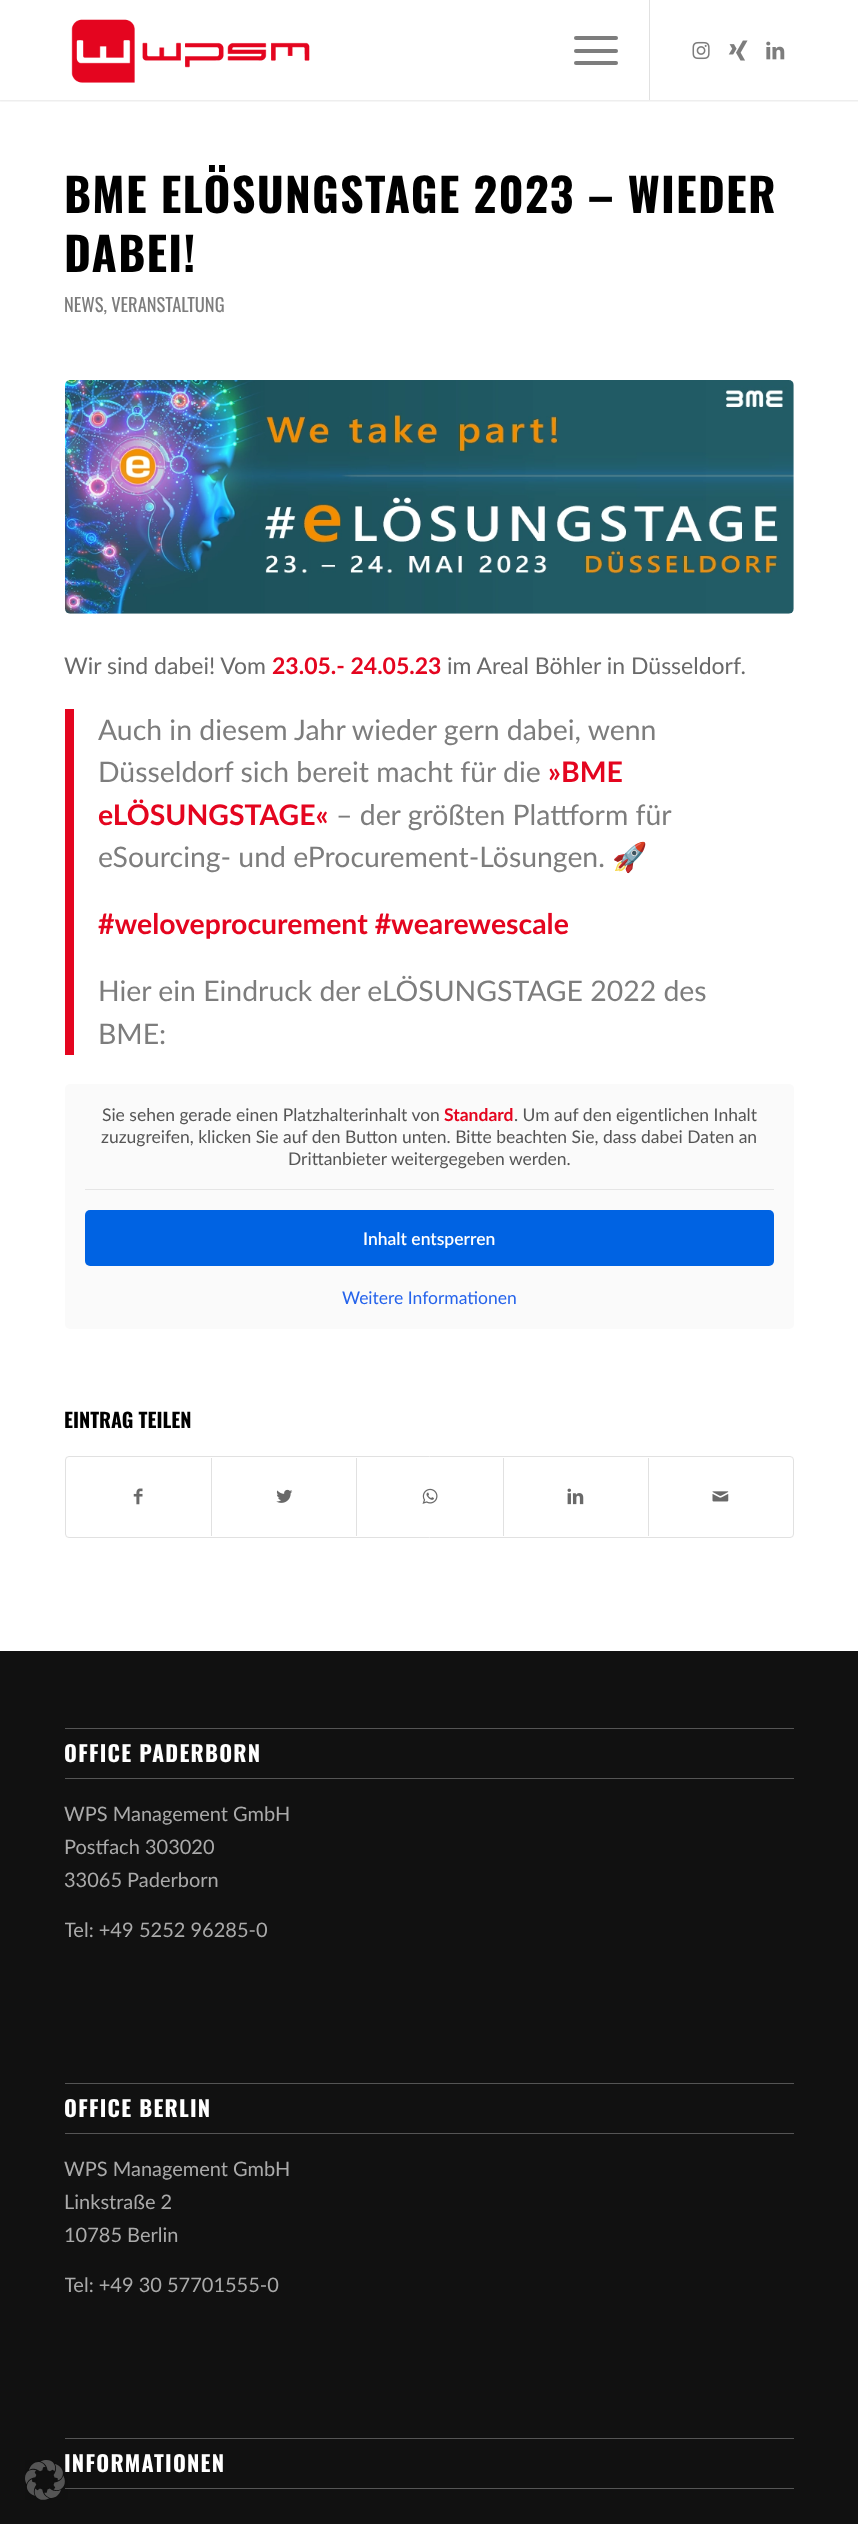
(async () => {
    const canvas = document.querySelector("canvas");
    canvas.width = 858;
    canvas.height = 2524;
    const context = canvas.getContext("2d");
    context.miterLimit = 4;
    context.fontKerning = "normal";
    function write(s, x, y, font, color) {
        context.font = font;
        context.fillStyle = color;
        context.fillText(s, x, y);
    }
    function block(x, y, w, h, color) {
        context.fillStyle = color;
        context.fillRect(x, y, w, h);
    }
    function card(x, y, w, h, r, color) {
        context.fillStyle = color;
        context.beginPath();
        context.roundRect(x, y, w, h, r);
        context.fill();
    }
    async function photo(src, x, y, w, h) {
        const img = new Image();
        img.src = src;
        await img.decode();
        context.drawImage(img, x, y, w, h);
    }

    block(0, 0, 858, 2524, "rgb(255, 255, 255)");
    context.save();
    context.beginPath();
    context.rect(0, 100, 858, 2);
    context.clip();
    context.fillStyle = "rgba(0, 0, 0, 0.1)";
    context.filter = "blur(1px)";
    context.beginPath();
    context.rect(-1, -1, 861, 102);
    context.fill();
    context.filter = "none";
    context.restore();
    await photo("media/1.png", 71, 19, 239, 64);
    block(649, 0, 1, 100, "rgb(225, 225, 225)");
    card(574, 49, 44, 4, 2, "rgb(125, 125, 125)");
    card(574, 36, 44, 4, 2, "rgb(125, 125, 125)");
    card(574, 61, 44, 4, 2, "rgb(125, 125, 125)");
    await photo("media/2.png", 692, 41, 18, 19);
    await photo("media/3.png", 728, 40, 20, 21);
    await photo("media/4.png", 766, 41, 19, 19);
    context.letterSpacing = "1.25px";
    write("BME ELÖSUNGSTAGE 2023 – WIEDER", 64, 213, "bold 46px Oswald", "rgb(0, 0, 0)");
    write("DABEI!", 64, 272, "bold 46px Oswald", "rgb(0, 0, 0)");
    context.letterSpacing = "0px";
    write("NEWS, VERANSTALTUNG", 64, 312, "18.5px Oswald", "rgb(125, 125, 125)");
    await photo("media/5.png", 65, 380, 729, 234);
    write("Wir sind dabei! Vom", 64, 674, "23px Lato", "rgb(105, 105, 105)");
    write("23.05.- 24.05.23", 272, 674, "bold 23px Lato", "rgb(228, 5, 31)");
    write("im Areal Böhler in Düsseldorf.", 447, 674, "23px Lato", "rgb(105, 105, 105)");
    block(65, 709, 9, 346, "rgb(228, 5, 31)");
    write("Auch in diesem Jahr wieder gern dabei, wenn", 98, 740, "28.4px Lato", "rgb(125, 125, 125)");
    write("Düsseldorf sich bereit macht für die", 98, 782, "28.4px Lato", "rgb(125, 125, 125)");
    write("»BME", 548, 782, "bold 28.4px Lato", "rgb(228, 5, 31)");
    write("eLÖSUNGSTAGE«", 98, 825, "bold 28.4px Lato", "rgb(228, 5, 31)");
    write("– der größten Plattform für", 336, 825, "28.4px Lato", "rgb(125, 125, 125)");
    write("eSourcing- und eProcurement-Lösungen.", 98, 867, "28.4px Lato", "rgb(125, 125, 125)");
    write("🚀", 612, 867, "bold 28.4px Noto Color Emoji", "rgb(228, 5, 31)");
    write("#weloveprocurement #wearewescale", 98, 934, "bold 28.4px Lato", "rgb(228, 5, 31)");
    write("Hier ein Eindruck der eLÖSUNGSTAGE 2022 des", 98, 1001, "28.4px Lato", "rgb(125, 125, 125)");
    write("BME:", 98, 1044, "28.4px Lato", "rgb(125, 125, 125)");
    card(65, 1084, 729, 245, 5, "rgb(250, 250, 250)");
    block(85, 1189, 689, 1, "rgb(229, 229, 229)");
    write("Sie sehen gerade einen Platzhalterinhalt von", 102, 1121, "17.5px Lato", "rgb(85, 85, 85)");
    write("Standard", 444, 1121, "bold 17.5px Lato", "rgb(228, 5, 31)");
    write(". Um auf den eigentlichen Inhalt", 514, 1121, "17.5px Lato", "rgb(85, 85, 85)");
    write("zuzugreifen, klicken Sie auf den Button unten. Bitte beachten Sie, dass dabei Daten an", 101, 1143, "17.5px Lato", "rgb(85, 85, 85)");
    write("Drittanbieter weitergegeben werden.", 288, 1165, "17.5px Lato", "rgb(85, 85, 85)");
    card(85, 1210, 689, 56, 5, "rgb(0, 99, 227)");
    write("Inhalt entsperren", 363, 1245, "600 17.5px Lato", "rgb(255, 255, 255)");
    write("Weitere Informationen", 342, 1304, "17.5px Lato", "rgb(37, 99, 235)");
    write("EINTRAG TEILEN", 64, 1428, "bold 20px Oswald", "rgb(0, 0, 0)");
    context.beginPath();
    context.roundRect(65.5, 1456.5, 728, 81, 3.5);
    context.strokeStyle = "rgb(225, 225, 225)";
    context.stroke();
    await photo("media/6.png", 133, 1488, 10, 17);
    block(211, 1458, 1, 78, "rgb(225, 225, 225)");
    await photo("media/7.png", 276, 1489, 17, 14);
    block(356, 1458, 1, 78, "rgb(225, 225, 225)");
    await photo("media/8.png", 422, 1488, 16, 16);
    block(503, 1458, 1, 78, "rgb(225, 225, 225)");
    await photo("media/9.png", 567, 1488, 17, 17);
    block(648, 1458, 1, 78, "rgb(225, 225, 225)");
    await photo("media/10.png", 712, 1491, 17, 11);
    block(0, 1651, 858, 873, "rgb(17, 17, 17)");
    block(65, 1728, 729, 1, "rgb(85, 85, 85)");
    block(65, 1778, 729, 1, "rgb(85, 85, 85)");
    context.letterSpacing = "1.25px";
    write("OFFICE PADERBORN", 64, 1762, "bold 22px Oswald", "rgb(255, 255, 255)");
    context.letterSpacing = "0px";
    write("WPS Management GmbH", 64, 1821, "20px Lato", "rgb(170, 170, 170)");
    write("Postfach 303020", 64, 1854, "20px Lato", "rgb(170, 170, 170)");
    write("33065 Paderborn", 64, 1887, "20px Lato", "rgb(170, 170, 170)");
    context.save();
    context.beginPath();
    context.rect(65, 1709, 729, 255);
    context.clip();
    write("Tel: +49", 64, 1937, "20px Lato", "rgb(170, 170, 170)");
    context.restore();
    write("5252 96285-0", 139, 1937, "20px Lato", "rgb(170, 170, 170)");
    block(65, 2083, 729, 1, "rgb(85, 85, 85)");
    block(65, 2133, 729, 1, "rgb(85, 85, 85)");
    context.letterSpacing = "1.25px";
    write("OFFICE BERLIN", 64, 2117, "bold 22px Oswald", "rgb(255, 255, 255)");
    context.letterSpacing = "0px";
    write("WPS Management GmbH", 64, 2176, "20px Lato", "rgb(170, 170, 170)");
    write("Linkstraße 2", 64, 2209, "20px Lato", "rgb(170, 170, 170)");
    write("10785 Berlin", 64, 2242, "20px Lato", "rgb(170, 170, 170)");
    context.save();
    context.beginPath();
    context.rect(65, 2064, 729, 255);
    context.clip();
    write("Tel: +49 30 57701555-0", 64, 2292, "20px Lato", "rgb(170, 170, 170)");
    context.restore();
    block(65, 2438, 729, 1, "rgb(85, 85, 85)");
    block(65, 2488, 729, 1, "rgb(85, 85, 85)");
    context.letterSpacing = "1.25px";
    write("INFORMATIONEN", 64, 2472, "bold 22px Oswald", "rgb(255, 255, 255)");
    await photo("media/11.png", 25, 2460, 43, 40);
})();
